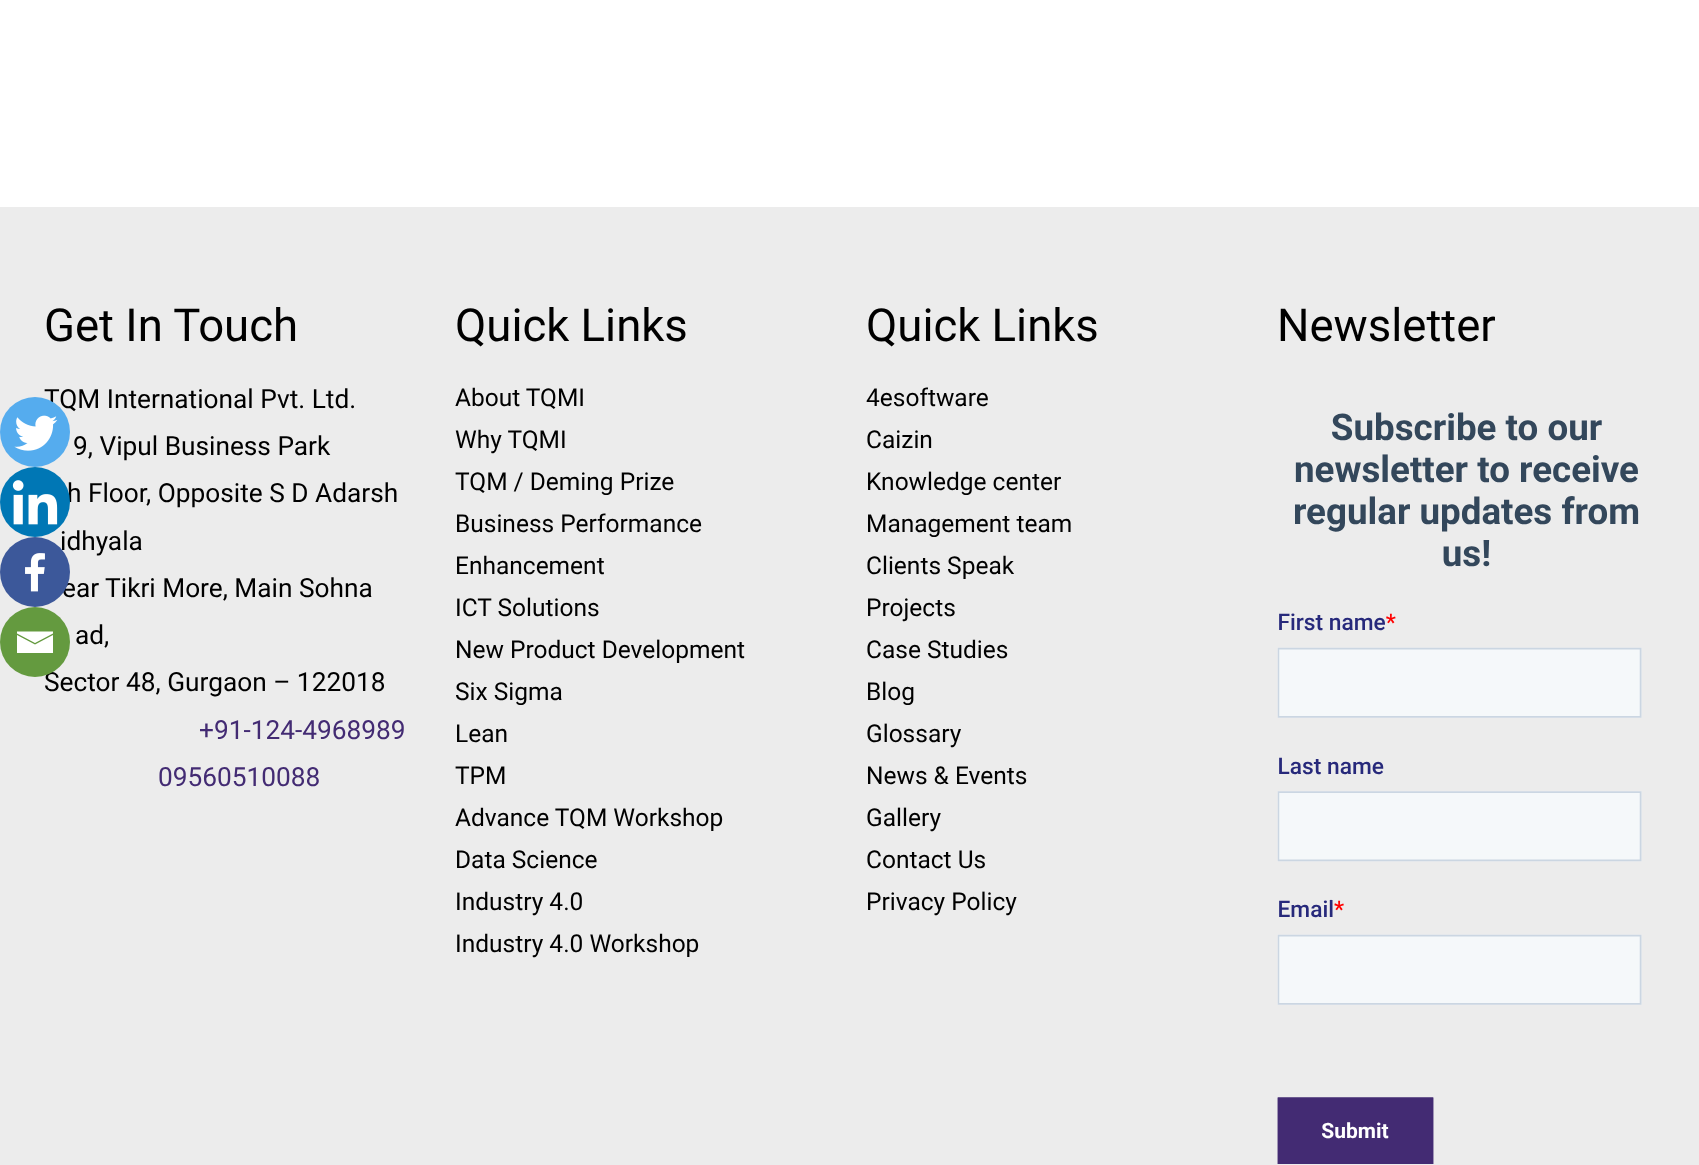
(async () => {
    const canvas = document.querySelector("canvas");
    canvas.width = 1699;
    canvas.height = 1165;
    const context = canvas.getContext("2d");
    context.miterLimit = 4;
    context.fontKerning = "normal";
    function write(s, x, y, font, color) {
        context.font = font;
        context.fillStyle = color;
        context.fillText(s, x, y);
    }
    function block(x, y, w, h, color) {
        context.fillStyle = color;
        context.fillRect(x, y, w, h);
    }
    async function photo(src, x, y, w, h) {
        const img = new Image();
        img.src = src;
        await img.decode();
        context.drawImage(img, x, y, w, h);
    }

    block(0, 0, 1699, 1165, "rgb(255, 255, 255)");
    block(0, 207, 1699, 958, "rgb(236, 236, 236)");
    write("TQM International Pvt. Ltd.", 44, 408, "26.25px Roboto", "rgb(0, 0, 0)");
    context.fillStyle = "rgb(85, 172, 238)";
    context.beginPath();
    context.arc(35, 432, 35, 0, Math.PI * 2);
    context.fill();
    await photo("media/1.png", 14, 415, 44, 36);
    write("h Floor, Opposite S D Adarsh", 67, 502, "26.25px Roboto", "rgb(0, 0, 0)");
    write("idhyala", 60, 550, "26.25px Roboto", "rgb(0, 0, 0)");
    context.fillStyle = "rgb(0, 119, 181)";
    context.beginPath();
    context.arc(35, 502, 35, 0, Math.PI * 2);
    context.fill();
    await photo("media/2.png", 12, 480, 46, 45);
    write("ear Tikri More, Main Sohna", 62, 597, "26.25px Roboto", "rgb(0, 0, 0)");
    context.fillStyle = "rgb(60, 88, 154)";
    context.beginPath();
    context.arc(35, 572, 35, 0, Math.PI * 2);
    context.fill();
    await photo("media/3.png", 25, 553, 20, 39);
    write("Sector 48, Gurgaon – 122018", 44, 691, "26.25px Roboto", "rgb(0, 0, 0)");
    context.fillStyle = "rgb(100, 154, 63)";
    context.beginPath();
    context.arc(35, 642, 35, 0, Math.PI * 2);
    context.fill();
    context.fillStyle = "rgb(255, 255, 255)";
    context.beginPath();
    context.moveTo(15.5, 631.5);
    context.lineTo(53, 631.5);
    context.lineTo(53, 633.5);
    context.lineTo(35, 643);
    context.lineTo(17, 633.5);
    context.lineTo(17, 631.5);
    context.moveTo(17, 635);
    context.lineTo(35, 644.5);
    context.lineTo(53, 635);
    context.lineTo(53, 653);
    context.lineTo(17, 653);
    context.lineTo(17, 635);
    context.fill();
    write("Get In Touch", 44, 341, "45.5px Roboto", "rgb(0, 0, 0)");
    write("9, Vipul Business Park", 73, 455, "26.25px Roboto", "rgb(0, 0, 0)");
    write("ad,", 75, 644, "26.25px Roboto", "rgb(0, 0, 0)");
    write("+91-124-4968989", 199, 739, "26.25px Roboto", "rgb(67, 43, 115)");
    write("09560510088", 158, 786, "26.25px Roboto", "rgb(67, 43, 115)");
    write("Quick Links", 455, 341, "45.5px Roboto", "rgb(0, 0, 0)");
    write("About TQMI", 455, 406, "24.5px Roboto", "rgb(0, 0, 0)");
    write("Why TQMI", 455, 448, "24.5px Roboto", "rgb(0, 0, 0)");
    write("TQM / Deming Prize", 455, 490, "24.5px Roboto", "rgb(0, 0, 0)");
    write("Business Performance", 455, 532, "24.5px Roboto", "rgb(0, 0, 0)");
    write("Enhancement", 455, 574, "24.5px Roboto", "rgb(0, 0, 0)");
    write("ICT Solutions", 455, 616, "24.5px Roboto", "rgb(0, 0, 0)");
    write("New Product Development", 455, 658, "24.5px Roboto", "rgb(0, 0, 0)");
    write("Six Sigma", 455, 700, "24.5px Roboto", "rgb(0, 0, 0)");
    write("Lean", 455, 742, "24.5px Roboto", "rgb(0, 0, 0)");
    write("TPM", 455, 784, "24.5px Roboto", "rgb(0, 0, 0)");
    write("Advance TQM Workshop", 455, 826, "24.5px Roboto", "rgb(0, 0, 0)");
    write("Data Science", 455, 868, "24.5px Roboto", "rgb(0, 0, 0)");
    write("Industry 4.0", 455, 910, "24.5px Roboto", "rgb(0, 0, 0)");
    write("Industry 4.0 Workshop", 455, 952, "24.5px Roboto", "rgb(0, 0, 0)");
    write("Quick Links", 866, 341, "45.5px Roboto", "rgb(0, 0, 0)");
    write("4esoftware", 866, 406, "24.5px Roboto", "rgb(0, 0, 0)");
    write("Caizin", 866, 448, "24.5px Roboto", "rgb(0, 0, 0)");
    write("Knowledge center", 866, 490, "24.5px Roboto", "rgb(0, 0, 0)");
    write("Management team", 866, 532, "24.5px Roboto", "rgb(0, 0, 0)");
    write("Clients Speak", 866, 574, "24.5px Roboto", "rgb(0, 0, 0)");
    write("Projects", 866, 616, "24.5px Roboto", "rgb(0, 0, 0)");
    write("Case Studies", 866, 658, "24.5px Roboto", "rgb(0, 0, 0)");
    write("Blog", 866, 700, "24.5px Roboto", "rgb(0, 0, 0)");
    write("Glossary", 866, 742, "24.5px Roboto", "rgb(0, 0, 0)");
    write("News & Events", 866, 784, "24.5px Roboto", "rgb(0, 0, 0)");
    write("Gallery", 866, 826, "24.5px Roboto", "rgb(0, 0, 0)");
    write("Contact Us", 866, 868, "24.5px Roboto", "rgb(0, 0, 0)");
    write("Privacy Policy", 866, 910, "24.5px Roboto", "rgb(0, 0, 0)");
    write("Newsletter", 1277, 341, "45.5px Roboto", "rgb(0, 0, 0)");
    await photo("media/4.png", 1277, 412, 365, 752);
})();
